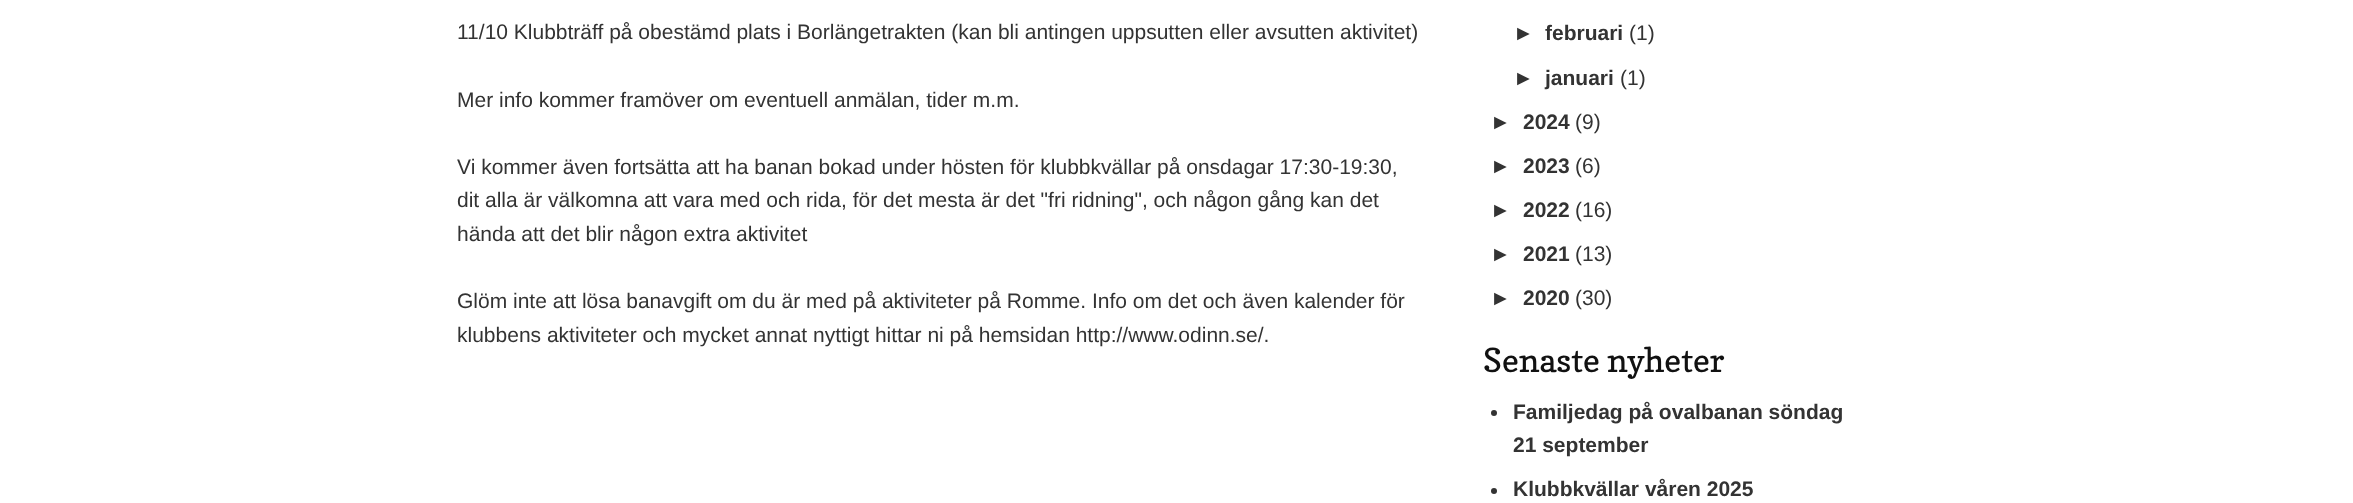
(async () => {
    const canvas = document.querySelector("canvas");
    canvas.width = 2353;
    canvas.height = 503;
    const context = canvas.getContext("2d");
    context.miterLimit = 4;
    context.fontKerning = "normal";
    function write(s, x, y, font, color) {
        context.font = font;
        context.fillStyle = color;
        context.fillText(s, x, y);
    }
    function block(x, y, w, h, color) {
        context.fillStyle = color;
        context.fillRect(x, y, w, h);
    }

    block(0, 0, 2353, 503, "rgb(255, 255, 255)");
    write("11/10 Klubbträff på obestämd plats i Borlängetrakten (kan bli antingen uppsutten eller avsutten aktivitet)", 457, 39, "21px Liberation Sans", "rgb(51, 51, 51)");
    write("Mer info kommer framöver om eventuell anmälan, tider m.m.", 457, 107, "21px Liberation Sans", "rgb(51, 51, 51)");
    write("Vi kommer även fortsätta att ha banan bokad under hösten för klubbkvällar på onsdagar 17:30-19:30,", 457, 174, "21px Liberation Sans", "rgb(51, 51, 51)");
    write("dit alla är välkomna att vara med och rida, för det mesta är det \"fri ridning\", och någon gång kan det", 457, 207, "21px Liberation Sans", "rgb(51, 51, 51)");
    write("hända att det blir någon extra aktivitet", 457, 241, "21px Liberation Sans", "rgb(51, 51, 51)");
    write("Glöm inte att lösa banavgift om du är med på aktiviteter på Romme. Info om det och även kalender för", 457, 308, "21px Liberation Sans", "rgb(51, 51, 51)");
    write("klubbens aktiviteter och mycket annat nyttigt hittar ni på hemsidan http://www.odinn.se/.", 457, 342, "21px Liberation Sans", "rgb(51, 51, 51)");
    write("►", 1513, 40, "21px Liberation Sans", "rgb(51, 51, 51)");
    write("februari", 1545, 40, "bold 21px Liberation Sans", "rgb(51, 51, 51)");
    write("(1)", 1629, 40, "21px Liberation Sans", "rgb(51, 51, 51)");
    write("►", 1513, 85, "21px Liberation Sans", "rgb(51, 51, 51)");
    write("januari", 1545, 85, "bold 21px Liberation Sans", "rgb(51, 51, 51)");
    write("(1)", 1620, 85, "21px Liberation Sans", "rgb(51, 51, 51)");
    write("►", 1490, 129, "21px Liberation Sans", "rgb(51, 51, 51)");
    write("2024", 1523, 129, "bold 21px Liberation Sans", "rgb(51, 51, 51)");
    write("(9)", 1575, 129, "21px Liberation Sans", "rgb(51, 51, 51)");
    write("►", 1490, 173, "21px Liberation Sans", "rgb(51, 51, 51)");
    write("2023", 1523, 173, "bold 21px Liberation Sans", "rgb(51, 51, 51)");
    write("(6)", 1575, 173, "21px Liberation Sans", "rgb(51, 51, 51)");
    write("►", 1490, 217, "21px Liberation Sans", "rgb(51, 51, 51)");
    write("2022", 1523, 217, "bold 21px Liberation Sans", "rgb(51, 51, 51)");
    write("(16)", 1575, 217, "21px Liberation Sans", "rgb(51, 51, 51)");
    write("►", 1490, 261, "21px Liberation Sans", "rgb(51, 51, 51)");
    write("2021", 1523, 261, "bold 21px Liberation Sans", "rgb(51, 51, 51)");
    write("(13)", 1575, 261, "21px Liberation Sans", "rgb(51, 51, 51)");
    write("►", 1490, 305, "21px Liberation Sans", "rgb(51, 51, 51)");
    write("2020", 1523, 305, "bold 21px Liberation Sans", "rgb(51, 51, 51)");
    write("(30)", 1575, 305, "21px Liberation Sans", "rgb(51, 51, 51)");
    write("Senaste nyheter", 1483, 372, "33px Copse", "rgb(17, 17, 17)");
    context.fillStyle = "rgb(51, 51, 51)";
    context.beginPath();
    context.arc(1494, 413, 3, 0, Math.PI * 2);
    context.fill();
    write("Familjedag på ovalbanan söndag", 1513, 419, "bold 21px Liberation Sans", "rgb(51, 51, 51)");
    write("21 september", 1513, 452, "bold 21px Liberation Sans", "rgb(51, 51, 51)");
    context.beginPath();
    context.arc(1494, 491, 3, 0, Math.PI * 2);
    context.fill();
    write("Klubbkvällar våren 2025", 1513, 496, "bold 21px Liberation Sans", "rgb(51, 51, 51)");
})();
